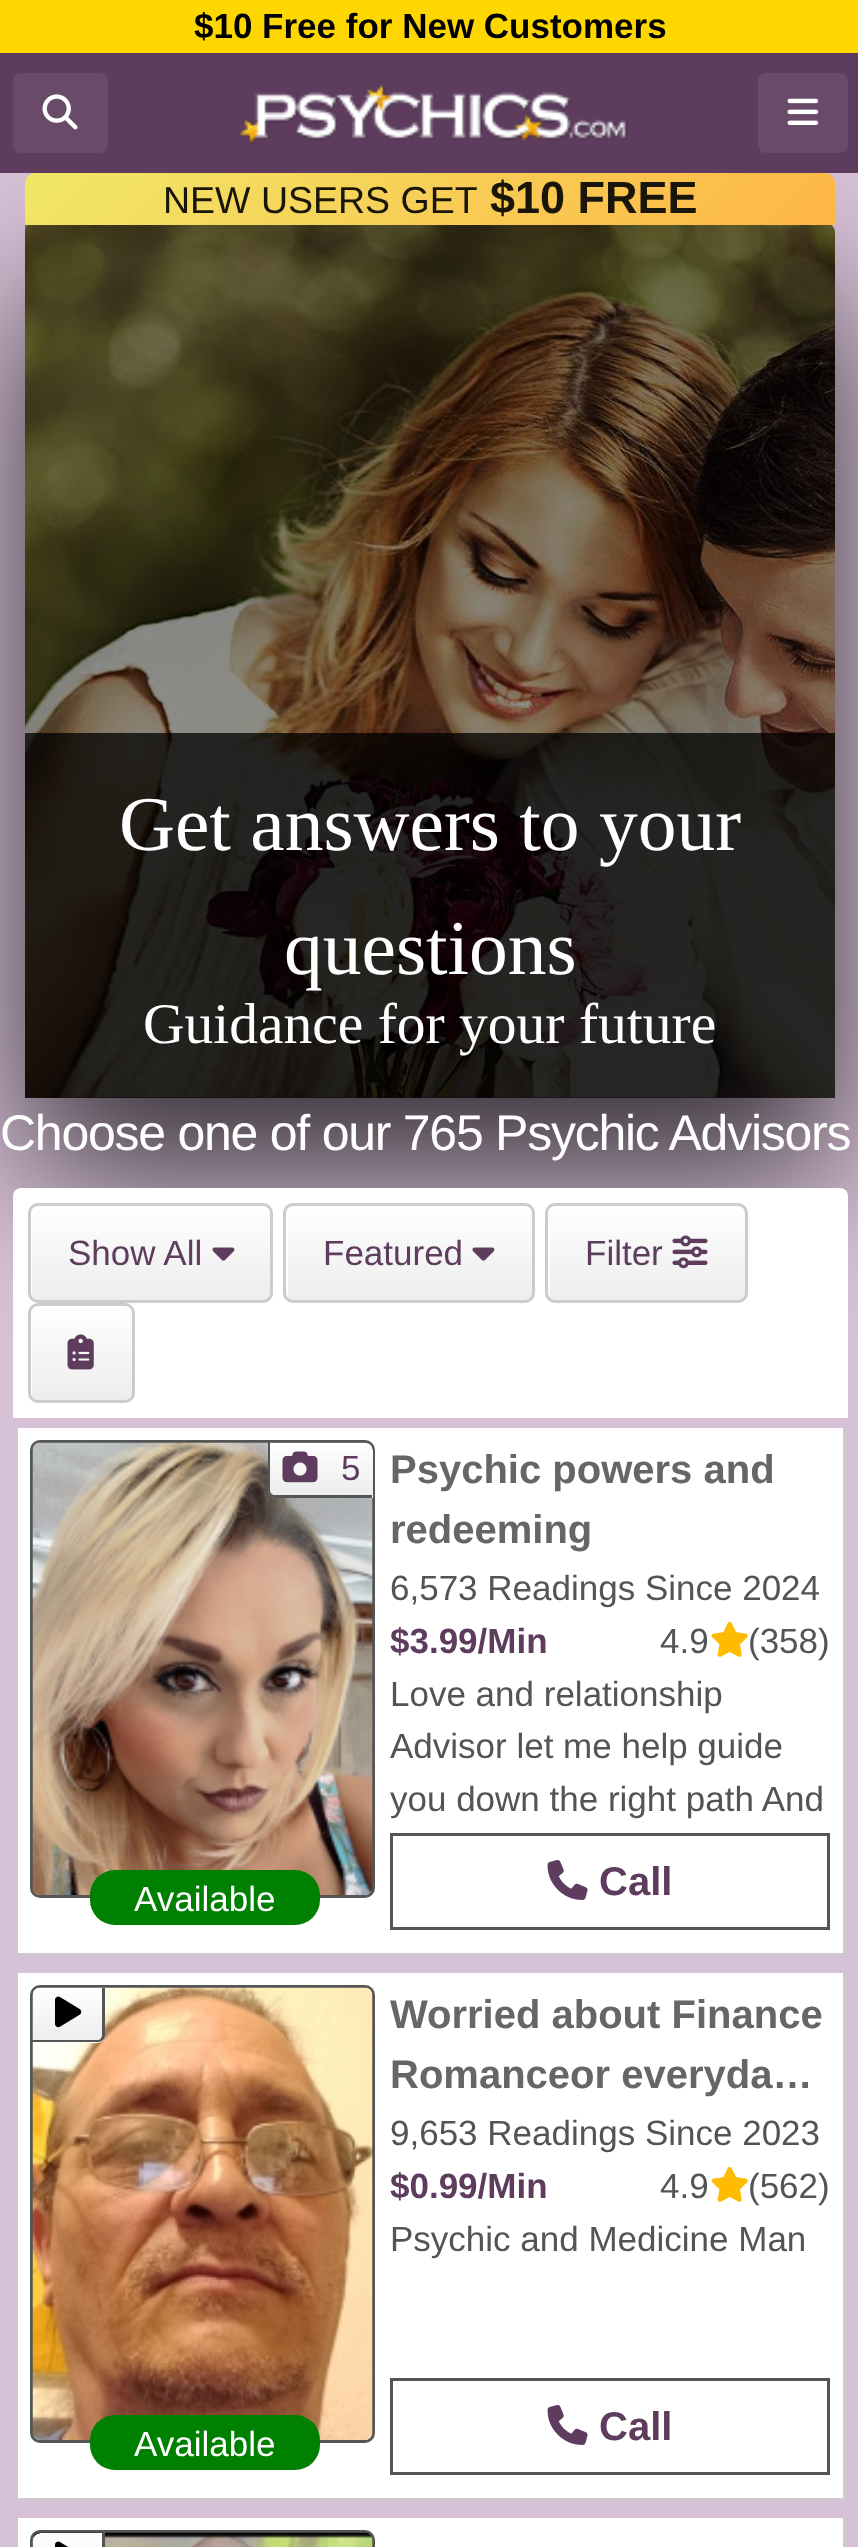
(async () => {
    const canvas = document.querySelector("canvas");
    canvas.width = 858;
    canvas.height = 2547;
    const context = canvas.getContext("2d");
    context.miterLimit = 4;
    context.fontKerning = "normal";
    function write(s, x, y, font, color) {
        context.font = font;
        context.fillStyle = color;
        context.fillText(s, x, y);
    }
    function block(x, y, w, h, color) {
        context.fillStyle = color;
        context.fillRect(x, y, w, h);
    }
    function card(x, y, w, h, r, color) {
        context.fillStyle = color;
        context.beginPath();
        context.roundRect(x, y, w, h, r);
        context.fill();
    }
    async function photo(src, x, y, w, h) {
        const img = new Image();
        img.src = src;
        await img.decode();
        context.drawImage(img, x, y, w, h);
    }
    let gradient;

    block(0, 0, 858, 2547, "rgb(215, 193, 215)");
    gradient = context.createLinearGradient(25, 660, 835, 660);
    gradient.addColorStop(0, "rgb(107, 96, 107)");
    gradient.addColorStop(1, "rgb(215, 192, 215)");
    context.fillStyle = gradient;
    context.fillRect(25, 225, 797, 873);
    context.fillStyle = "rgba(0, 0, 0, 0.75)";
    context.filter = "blur(75px)";
    context.beginPath();
    context.roundRect(25, 298, 810, 875, 10);
    context.fill();
    context.filter = "none";
    block(0, 53, 858, 120, "rgb(93, 60, 93)");
    block(0, 0, 858, 53, "rgb(255, 215, 0)");
    write("$10 Free for New Customers", 194, 38, "bold 35px Liberation Sans", "rgb(0, 0, 0)");
    card(13, 73, 95, 80, 8, "rgb(105, 75, 105)");
    await photo("media/1.png", 42, 94, 36, 36);
    await photo("media/2.png", 237, 84, 391, 61);
    card(758, 73, 90, 80, 8, "rgb(105, 75, 105)");
    await photo("media/3.png", 787, 98, 32, 27);
    gradient = context.createLinearGradient(214, -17, 646, 414);
    gradient.addColorStop(0, "rgb(241, 231, 103)");
    gradient.addColorStop(1, "rgb(254, 182, 69)");
    context.fillStyle = gradient;
    context.beginPath();
    context.roundRect(25, 173, 810, 52, [10, 10, 0, 0]);
    context.fill();
    write("NEW USERS GET", 163, 213, "37.5px Liberation Sans", "rgb(25, 21, 9)");
    write("$10 FREE", 490, 213, "bold 45px Liberation Sans", "rgb(25, 21, 9)");
    await photo("media/4.png", 25, 225, 810, 873);
    block(25, 733, 810, 365, "rgba(0, 0, 0, 0.75)");
    write("Get answers to your", 119, 850, "77.5px Liberation Serif", "rgb(255, 255, 255)");
    write("questions", 284, 974, "77.5px Liberation Serif", "rgb(255, 255, 255)");
    write("Guidance for your future", 143, 1043, "57.5px Liberation Serif", "rgb(255, 255, 255)");
    context.letterSpacing = "-1.25px";
    write("Choose one of our 765 Psychic Advisors", 0, 1150, "50px Liberation Sans", "rgb(255, 255, 255)");
    context.beginPath();
    context.roundRect(13, 1188, 835, 230, [8, 8, 0, 0]);
    context.fill();
    context.save();
    context.beginPath();
    context.roundRect(28, 1203, 245, 100, 10);
    context.clip();
    gradient = context.createLinearGradient(150, 1205, 150, 1300);
    gradient.addColorStop(0, "rgb(255, 255, 255)");
    gradient.addColorStop(0.47, "rgb(246, 246, 246)");
    gradient.addColorStop(1, "rgb(237, 237, 237)");
    context.fillStyle = gradient;
    context.fillRect(28, 1205, 245, 95);
    context.restore();
    context.beginPath();
    context.moveTo(40, 1208);
    context.lineTo(265, 1208);
    context.bezierCurveTo(267, 1208, 268, 1208, 269, 1209);
    context.bezierCurveTo(268, 1207, 265, 1205, 262, 1205);
    context.lineTo(38, 1205);
    context.bezierCurveTo(34, 1205, 30, 1209, 30, 1213);
    context.lineTo(30, 1292);
    context.bezierCurveTo(30, 1294, 31, 1297, 33, 1298);
    context.lineTo(32, 1295);
    context.lineTo(32, 1215);
    context.bezierCurveTo(32, 1211, 36, 1208, 40, 1208);
    context.closePath();
    context.fill();
    context.beginPath();
    context.roundRect(29.5, 1204.5, 242, 97, 8.5);
    context.strokeStyle = "rgb(204, 204, 204)";
    context.lineWidth = 3;
    context.stroke();
    context.letterSpacing = "0px";
    write("Show All", 68, 1265, "35px Liberation Sans", "rgb(93, 60, 93)");
    await photo("media/5.png", 212, 1247, 23, 14);
    context.save();
    context.beginPath();
    context.roundRect(283, 1203, 252, 100, 10);
    context.clip();
    gradient = context.createLinearGradient(409, 1205, 409, 1300);
    gradient.addColorStop(0, "rgb(255, 255, 255)");
    gradient.addColorStop(0.47, "rgb(246, 246, 246)");
    gradient.addColorStop(1, "rgb(237, 237, 237)");
    context.fillStyle = gradient;
    context.fillRect(283, 1205, 252, 95);
    context.restore();
    context.fillStyle = "rgb(255, 255, 255)";
    context.beginPath();
    context.moveTo(295, 1208);
    context.lineTo(528, 1208);
    context.bezierCurveTo(530, 1208, 531, 1208, 532, 1209);
    context.bezierCurveTo(531, 1207, 528, 1205, 525, 1205);
    context.lineTo(293, 1205);
    context.bezierCurveTo(289, 1205, 285, 1209, 285, 1213);
    context.lineTo(285, 1292);
    context.bezierCurveTo(285, 1295, 287, 1298, 289, 1299);
    context.bezierCurveTo(288, 1298, 288, 1297, 288, 1295);
    context.lineTo(288, 1215);
    context.bezierCurveTo(288, 1211, 291, 1208, 295, 1208);
    context.closePath();
    context.fill();
    context.beginPath();
    context.roundRect(284.5, 1204.5, 249, 97, 8.5);
    context.stroke();
    write("Featured", 323, 1265, "35px Liberation Sans", "rgb(93, 60, 93)");
    await photo("media/5.png", 472, 1247, 23, 14);
    context.save();
    context.beginPath();
    context.roundRect(545, 1203, 203, 100, 10);
    context.clip();
    gradient = context.createLinearGradient(646, 1205, 646, 1300);
    gradient.addColorStop(0, "rgb(255, 255, 255)");
    gradient.addColorStop(0.47, "rgb(246, 246, 246)");
    gradient.addColorStop(1, "rgb(237, 237, 237)");
    context.fillStyle = gradient;
    context.fillRect(545, 1205, 203, 95);
    context.restore();
    context.fillStyle = "rgb(255, 255, 255)";
    context.beginPath();
    context.moveTo(558, 1208);
    context.lineTo(740, 1208);
    context.lineTo(744, 1209);
    context.bezierCurveTo(743, 1207, 740, 1205, 737, 1205);
    context.lineTo(556, 1205);
    context.bezierCurveTo(552, 1205, 548, 1209, 548, 1213);
    context.lineTo(548, 1292);
    context.bezierCurveTo(548, 1294, 549, 1296, 551, 1298);
    context.lineTo(550, 1295);
    context.lineTo(550, 1215);
    context.bezierCurveTo(550, 1211, 553, 1208, 558, 1208);
    context.closePath();
    context.fill();
    context.beginPath();
    context.roundRect(546.5, 1204.5, 200, 97, 8.5);
    context.stroke();
    write("Filter", 585, 1265, "35px Liberation Sans", "rgb(93, 60, 93)");
    await photo("media/6.png", 672, 1235, 36, 34);
    context.save();
    context.beginPath();
    context.roundRect(28, 1303, 107, 100, 10);
    context.clip();
    gradient = context.createLinearGradient(81, 1305, 81, 1400);
    gradient.addColorStop(0, "rgb(255, 255, 255)");
    gradient.addColorStop(0.47, "rgb(246, 246, 246)");
    gradient.addColorStop(1, "rgb(237, 237, 237)");
    context.fillStyle = gradient;
    context.fillRect(28, 1305, 107, 95);
    context.restore();
    context.fillStyle = "rgb(255, 255, 255)";
    context.beginPath();
    context.moveTo(40, 1308);
    context.lineTo(128, 1308);
    context.bezierCurveTo(130, 1308, 131, 1308, 132, 1309);
    context.bezierCurveTo(131, 1307, 128, 1305, 125, 1305);
    context.lineTo(38, 1305);
    context.bezierCurveTo(34, 1305, 30, 1309, 30, 1313);
    context.lineTo(30, 1392);
    context.bezierCurveTo(30, 1394, 31, 1397, 33, 1398);
    context.lineTo(32, 1395);
    context.lineTo(32, 1315);
    context.bezierCurveTo(32, 1311, 36, 1308, 40, 1308);
    context.closePath();
    context.fill();
    context.beginPath();
    context.roundRect(29.5, 1304.5, 104, 97, 8.5);
    context.stroke();
    await photo("media/7.png", 67, 1334, 27, 36);
    context.fillStyle = "rgb(204, 204, 204)";
    context.beginPath();
    context.moveTo(20, 1952);
    context.lineTo(20, 1955);
    context.lineTo(845, 1955);
    context.lineTo(845, 1430);
    context.lineTo(842, 1430);
    context.lineTo(842, 1952);
    context.closePath();
    context.fill();
    block(18, 1428, 825, 525, "rgb(255, 255, 255)");
    context.beginPath();
    context.roundRect(31.5, 1441.5, 342, 455, 8.5);
    context.strokeStyle = "rgb(85, 85, 85)";
    context.stroke();
    await photo("media/8.png", 32, 1442, 341, 453);
    context.save();
    context.beginPath();
    context.roundRect(268, 1443, 105, 55, [0, 8, 0, 8]);
    context.clip();
    gradient = context.createLinearGradient(321, 1443, 321, 1495);
    gradient.addColorStop(0, "rgb(255, 255, 255)");
    gradient.addColorStop(0.47, "rgb(246, 246, 246)");
    gradient.addColorStop(1, "rgb(237, 237, 237)");
    context.fillStyle = gradient;
    context.beginPath();
    context.roundRect(268, 1443, 105, 52, [0, 8, 0, 0]);
    context.fill();
    gradient = context.createLinearGradient(321, 1495, 321, 1548);
    gradient.addColorStop(0, "rgb(255, 255, 255)");
    gradient.addColorStop(0.47, "rgb(246, 246, 246)");
    gradient.addColorStop(1, "rgb(237, 237, 237)");
    context.fillStyle = gradient;
    context.fillRect(268, 1495, 105, 3);
    context.restore();
    context.fillStyle = "rgb(85, 85, 85)";
    context.beginPath();
    context.moveTo(268, 1442);
    context.lineTo(365, 1442);
    context.bezierCurveTo(369, 1442, 372, 1446, 372, 1450);
    context.lineTo(372, 1498);
    context.lineTo(275, 1498);
    context.bezierCurveTo(271, 1498, 268, 1494, 268, 1490);
    context.closePath();
    context.moveTo(270, 1442);
    context.lineTo(365, 1442);
    context.bezierCurveTo(369, 1442, 372, 1446, 372, 1450);
    context.lineTo(372, 1495);
    context.lineTo(275, 1495);
    context.bezierCurveTo(272, 1495, 270, 1493, 270, 1490);
    context.closePath();
    context.fill("evenodd");
    await photo("media/9.png", 282, 1451, 36, 32);
    write("5", 341, 1480, "35px Liberation Sans", "rgb(93, 60, 93)");
    card(90, 1870, 230, 55, 25, "rgb(0, 128, 0)");
    write("Available", 134, 1911, "35px Liberation Sans", "rgb(255, 255, 255)");
    write("Psychic powers and", 390, 1483, "bold 40px Liberation Sans", "rgb(102, 102, 102)");
    write("redeeming", 390, 1543, "bold 40px Liberation Sans", "rgb(102, 102, 102)");
    write("6,573 Readings Since 2024", 390, 1600, "35px Liberation Sans", "rgb(84, 84, 84)");
    write("$3.99/Min", 390, 1653, "bold 35px Liberation Sans", "rgb(93, 60, 93)");
    write("4.9", 660, 1653, "35px Liberation Sans", "rgb(84, 84, 84)");
    await photo("media/10.png", 711, 1621, 37, 36);
    write("(358)", 748, 1653, "35px Liberation Sans", "rgb(84, 84, 84)");
    write("Love and relationship", 390, 1706, "35px Liberation Sans", "rgb(84, 84, 84)");
    write("Advisor let me help guide", 390, 1758, "35px Liberation Sans", "rgb(84, 84, 84)");
    write("you down the right path And", 390, 1811, "35px Liberation Sans", "rgb(84, 84, 84)");
    context.strokeRect(391.5, 1834.5, 437, 94);
    await photo("media/11.png", 547, 1860, 41, 40);
    write("Call", 599, 1895, "bold 40px Liberation Sans", "rgb(93, 60, 93)");
    context.fillStyle = "rgb(204, 204, 204)";
    context.beginPath();
    context.moveTo(20, 2498);
    context.lineTo(20, 2500);
    context.lineTo(845, 2500);
    context.lineTo(845, 1975);
    context.lineTo(842, 1975);
    context.lineTo(842, 2498);
    context.closePath();
    context.fill();
    block(18, 1973, 825, 525, "rgb(255, 255, 255)");
    context.beginPath();
    context.roundRect(31.5, 1986.5, 342, 455, 8.5);
    context.stroke();
    await photo("media/12.png", 32, 1987, 341, 453);
    context.save();
    context.beginPath();
    context.roundRect(33, 1988, 72, 55, [8, 0, 8, 0]);
    context.clip();
    gradient = context.createLinearGradient(68, 1988, 68, 2040);
    gradient.addColorStop(0, "rgb(255, 255, 255)");
    gradient.addColorStop(0.47, "rgb(246, 246, 246)");
    gradient.addColorStop(1, "rgb(237, 237, 237)");
    context.fillStyle = gradient;
    context.beginPath();
    context.roundRect(33, 1988, 72, 52, [8, 0, 0, 0]);
    context.fill();
    gradient = context.createLinearGradient(68, 2040, 68, 2093);
    gradient.addColorStop(0, "rgb(255, 255, 255)");
    gradient.addColorStop(0.47, "rgb(246, 246, 246)");
    gradient.addColorStop(1, "rgb(237, 237, 237)");
    context.fillStyle = gradient;
    context.fillRect(33, 2040, 72, 3);
    context.restore();
    context.fillStyle = "rgb(85, 85, 85)";
    context.beginPath();
    context.moveTo(40, 1988);
    context.lineTo(105, 1988);
    context.lineTo(105, 2035);
    context.bezierCurveTo(105, 2039, 102, 2042, 98, 2042);
    context.lineTo(32, 2042);
    context.lineTo(32, 1995);
    context.bezierCurveTo(32, 1991, 36, 1988, 40, 1988);
    context.closePath();
    context.moveTo(40, 1988);
    context.lineTo(102, 1988);
    context.lineTo(102, 2035);
    context.bezierCurveTo(102, 2038, 100, 2040, 98, 2040);
    context.lineTo(32, 2040);
    context.lineTo(32, 1995);
    context.bezierCurveTo(32, 1991, 36, 1988, 40, 1988);
    context.closePath();
    context.fill("evenodd");
    await photo("media/13.png", 55, 1996, 27, 32);
    card(90, 2415, 230, 55, 25, "rgb(0, 128, 0)");
    write("Available", 134, 2456, "35px Liberation Sans", "rgb(255, 255, 255)");
    write("Worried about Finance", 390, 2028, "bold 40px Liberation Sans", "rgb(102, 102, 102)");
    write("Romanceor everyda…", 390, 2088, "bold 40px Liberation Sans", "rgb(102, 102, 102)");
    write("9,653 Readings Since 2023", 390, 2145, "35px Liberation Sans", "rgb(84, 84, 84)");
    write("$0.99/Min", 390, 2198, "bold 35px Liberation Sans", "rgb(93, 60, 93)");
    write("4.9", 660, 2198, "35px Liberation Sans", "rgb(84, 84, 84)");
    await photo("media/10.png", 711, 2166, 37, 36);
    write("(562)", 748, 2198, "35px Liberation Sans", "rgb(84, 84, 84)");
    write("Psychic and Medicine Man", 390, 2251, "35px Liberation Sans", "rgb(84, 84, 84)");
    context.strokeRect(391.5, 2379.5, 437, 94);
    await photo("media/11.png", 547, 2405, 41, 40);
    write("Call", 599, 2440, "bold 40px Liberation Sans", "rgb(93, 60, 93)");
    context.fillStyle = "rgb(204, 204, 204)";
    context.beginPath();
    context.moveTo(20, 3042);
    context.lineTo(20, 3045);
    context.lineTo(845, 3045);
    context.lineTo(845, 2520);
    context.lineTo(842, 2520);
    context.lineTo(842, 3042);
    context.closePath();
    context.fill();
    block(18, 2518, 825, 29, "rgb(255, 255, 255)");
    context.beginPath();
    context.roundRect(31.5, 2531.5, 342, 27, 8.5);
    context.stroke();
    await photo("media/14.png", 32, 2532, 341, 15);
    context.save();
    context.beginPath();
    context.moveTo(41, 2533);
    context.lineTo(105, 2533);
    context.lineTo(105, 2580);
    context.bezierCurveTo(105, 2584.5, 101.5, 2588, 97, 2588);
    context.lineTo(33, 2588);
    context.lineTo(33, 2541);
    context.bezierCurveTo(33, 2536.5, 36.5, 2533, 41, 2533);
    context.closePath();
    context.clip();
    gradient = context.createLinearGradient(68, 2533, 68, 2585);
    gradient.addColorStop(0, "rgb(255, 255, 255)");
    gradient.addColorStop(0.47, "rgb(246, 246, 246)");
    gradient.addColorStop(1, "rgb(237, 237, 237)");
    context.fillStyle = gradient;
    context.beginPath();
    context.moveTo(41, 2533);
    context.lineTo(105, 2533);
    context.lineTo(105, 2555);
    context.lineTo(33, 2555);
    context.lineTo(33, 2541);
    context.bezierCurveTo(33, 2536.5, 36.5, 2533, 41, 2533);
    context.closePath();
    context.fill();
    context.restore();
    context.fillStyle = "rgb(85, 85, 85)";
    context.beginPath();
    context.moveTo(40, 2532);
    context.lineTo(105, 2532);
    context.lineTo(105, 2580);
    context.bezierCurveTo(105, 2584, 102, 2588, 98, 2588);
    context.lineTo(32, 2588);
    context.lineTo(32, 2540);
    context.bezierCurveTo(32, 2536, 36, 2532, 40, 2532);
    context.closePath();
    context.moveTo(40, 2532);
    context.lineTo(102, 2532);
    context.lineTo(102, 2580);
    context.bezierCurveTo(102, 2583, 100, 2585, 98, 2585);
    context.lineTo(32, 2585);
    context.lineTo(32, 2540);
    context.bezierCurveTo(32, 2536, 36, 2532, 40, 2532);
    context.closePath();
    context.fill("evenodd");
    await photo("media/15.png", 55, 2541, 13, 6);
})();
